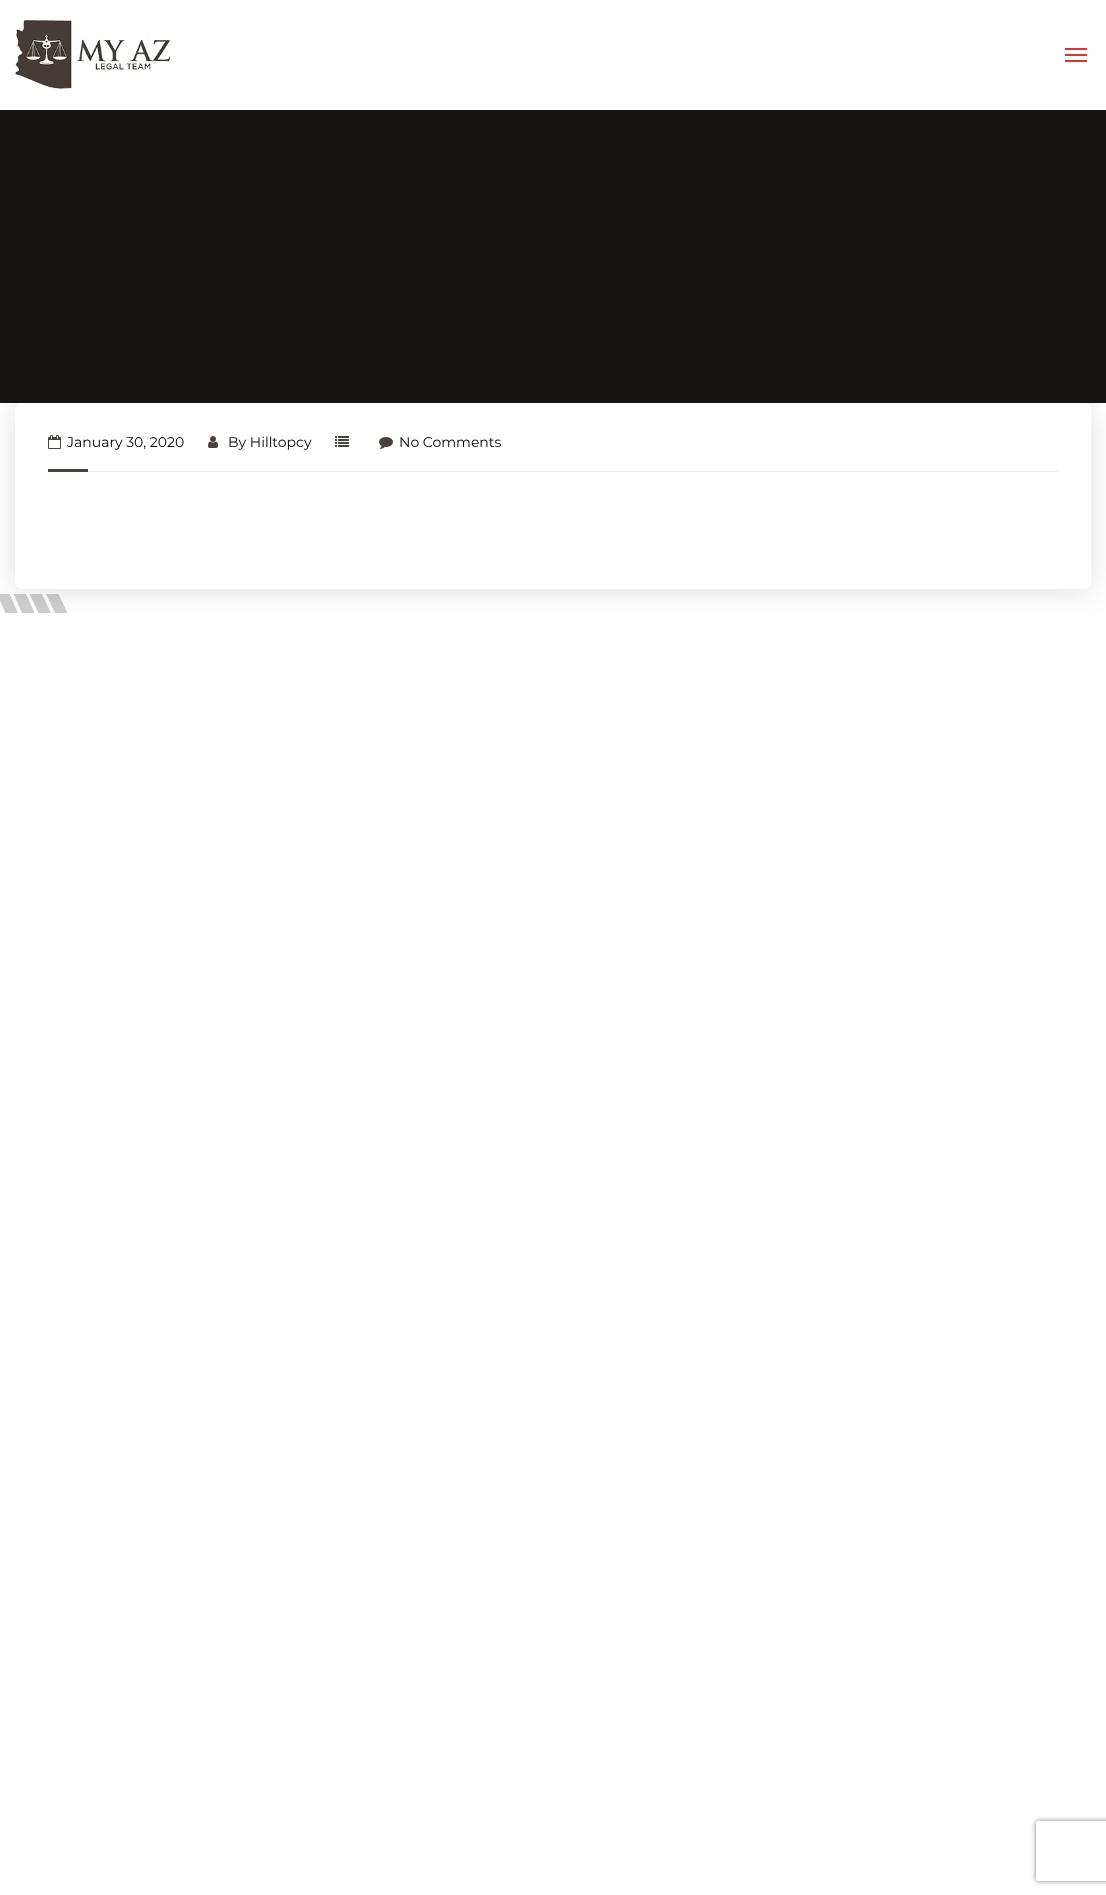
(async () => {
    const canvas = document.querySelector("canvas");
    canvas.width = 1106;
    canvas.height = 1895;
    const context = canvas.getContext("2d");
    context.miterLimit = 4;
    context.fontKerning = "normal";
    function write(s, x, y, font, color) {
        context.font = font;
        context.fillStyle = color;
        context.fillText(s, x, y);
    }
    function block(x, y, w, h, color) {
        context.fillStyle = color;
        context.fillRect(x, y, w, h);
    }
    function card(x, y, w, h, r, color) {
        context.fillStyle = color;
        context.beginPath();
        context.roundRect(x, y, w, h, r);
        context.fill();
    }
    async function photo(src, x, y, w, h) {
        const img = new Image();
        img.src = src;
        await img.decode();
        context.drawImage(img, x, y, w, h);
    }

    block(0, 0, 1106, 1895, "rgb(255, 255, 255)");
    await photo("media/1.png", 15, 20, 155, 69);
    block(1065, 48, 22, 2, "rgb(221, 51, 51)");
    block(1065, 54, 22, 2, "rgb(221, 51, 51)");
    block(1065, 60, 22, 2, "rgb(221, 51, 51)");
    block(0, 110, 1106, 293, "rgb(22, 20, 18)");
    context.save();
    context.beginPath();
    context.rect(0, 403, 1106, 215);
    context.clip();
    context.fillStyle = "rgba(34, 34, 34, 0.14)";
    context.filter = "blur(14.5px)";
    context.beginPath();
    context.roundRect(15, 405, 1076, 186, 7);
    context.fill();
    context.filter = "none";
    context.restore();
    card(15, 403, 1076, 186, 7, "rgb(255, 255, 255)");
    block(88, 471, 970, 1, "rgb(236, 236, 240)");
    await photo("media/2.png", 48, 435, 13, 14);
    write("January 30, 2020", 67, 447, "14px Montserrat", "rgb(0, 0, 0)");
    await photo("media/3.png", 208, 436, 10, 12);
    write("By Hilltopcy", 228, 447, "14px Montserrat", "rgb(0, 0, 0)");
    await photo("media/4.png", 335, 436, 14, 11);
    await photo("media/5.png", 379, 437, 14, 12);
    write("No Comments", 399, 447, "14px Montserrat", "rgb(0, 0, 0)");
    block(48, 469, 40, 3, "rgb(73, 66, 60)");
    context.fillStyle = "rgba(0, 0, 0, 0.1)";
    context.beginPath();
    context.moveTo(-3, 594);
    context.lineTo(9.5, 594);
    context.lineTo(18, 613);
    context.lineTo(5.5, 613);
    context.closePath();
    context.fill();
    context.beginPath();
    context.moveTo(-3, 594);
    context.lineTo(9.5, 594);
    context.lineTo(18, 613);
    context.lineTo(5.5, 613);
    context.closePath();
    context.fill();
    context.beginPath();
    context.moveTo(13.5, 594);
    context.lineTo(26, 594);
    context.lineTo(34.5, 613);
    context.lineTo(22, 613);
    context.closePath();
    context.fill();
    context.beginPath();
    context.moveTo(13.5, 594);
    context.lineTo(26, 594);
    context.lineTo(34.5, 613);
    context.lineTo(22, 613);
    context.closePath();
    context.fill();
    context.beginPath();
    context.moveTo(29.5, 594);
    context.lineTo(42, 594);
    context.lineTo(51, 613);
    context.lineTo(38.5, 613);
    context.closePath();
    context.fill();
    context.beginPath();
    context.moveTo(29.5, 594);
    context.lineTo(42, 594);
    context.lineTo(51, 613);
    context.lineTo(38.5, 613);
    context.closePath();
    context.fill();
    context.beginPath();
    context.moveTo(46, 594);
    context.lineTo(58.5, 594);
    context.lineTo(67.5, 613);
    context.lineTo(55, 613);
    context.closePath();
    context.fill();
    context.beginPath();
    context.moveTo(46, 594);
    context.lineTo(58.5, 594);
    context.lineTo(67.5, 613);
    context.lineTo(55, 613);
    context.closePath();
    context.fill();
    context.save();
    context.beginPath();
    context.moveTo(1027, 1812);
    context.lineTo(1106, 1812);
    context.lineTo(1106, 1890);
    context.lineTo(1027, 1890);
    context.closePath();
    context.moveTo(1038, 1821);
    context.lineTo(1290, 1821);
    context.bezierCurveTo(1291, 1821, 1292, 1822, 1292, 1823);
    context.lineTo(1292, 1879);
    context.bezierCurveTo(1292, 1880, 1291, 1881, 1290, 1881);
    context.lineTo(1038, 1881);
    context.bezierCurveTo(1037, 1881, 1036, 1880, 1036, 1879);
    context.lineTo(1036, 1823);
    context.bezierCurveTo(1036, 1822, 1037, 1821, 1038, 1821);
    context.closePath();
    context.clip("evenodd");
    context.fillStyle = "rgb(128, 128, 128)";
    context.filter = "blur(2.5px)";
    context.beginPath();
    context.roundRect(1036, 1821, 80, 60, 2);
    context.fill();
    context.filter = "none";
    context.restore();
})();
